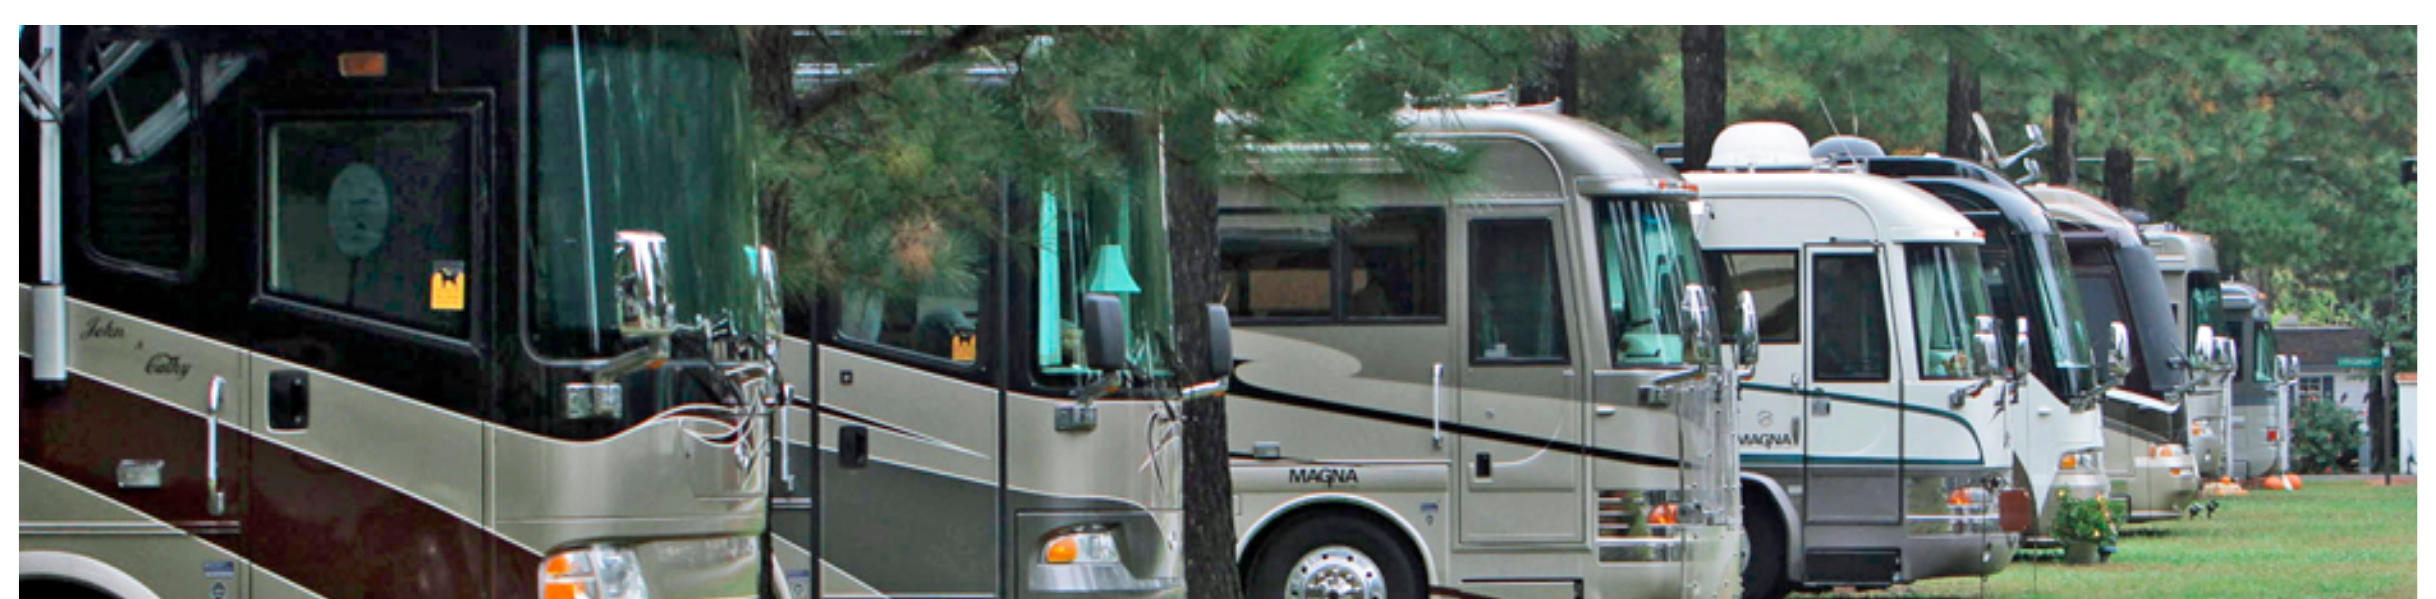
(async () => {
    const canvas = document.querySelector("canvas");
    canvas.width = 2436;
    canvas.height = 599;
    const context = canvas.getContext("2d");
    context.miterLimit = 4;
    context.fontKerning = "normal";
    function block(x, y, w, h, color) {
        context.fillStyle = color;
        context.fillRect(x, y, w, h);
    }
    async function photo(src, x, y, w, h) {
        const img = new Image();
        img.src = src;
        await img.decode();
        context.drawImage(img, x, y, w, h);
    }

    block(0, 0, 2436, 599, "rgb(255, 255, 255)");
    await photo("media/1.png", 18, 25, 2400, 574);
})();
